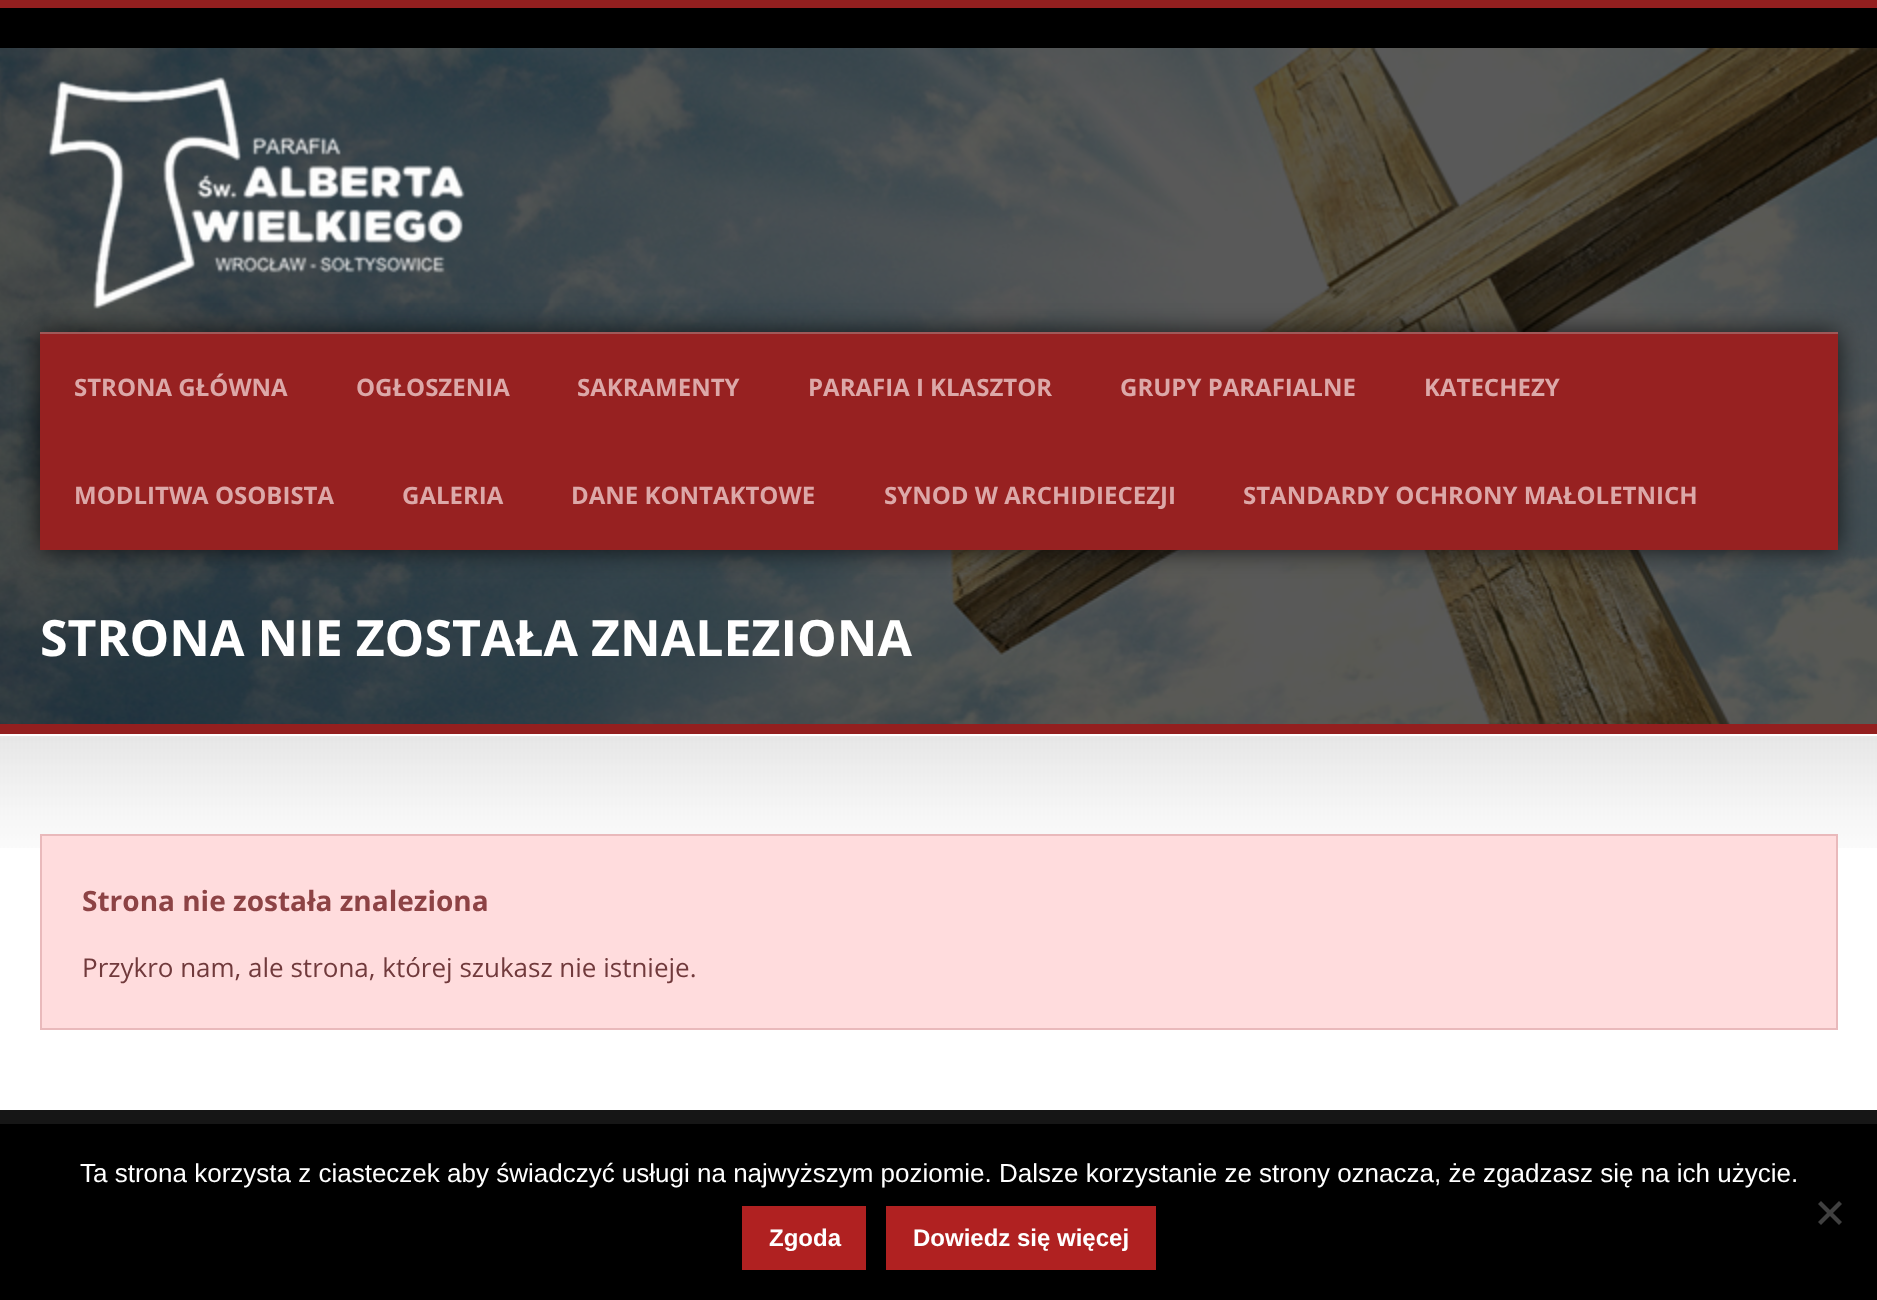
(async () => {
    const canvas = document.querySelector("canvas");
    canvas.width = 1877;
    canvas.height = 1300;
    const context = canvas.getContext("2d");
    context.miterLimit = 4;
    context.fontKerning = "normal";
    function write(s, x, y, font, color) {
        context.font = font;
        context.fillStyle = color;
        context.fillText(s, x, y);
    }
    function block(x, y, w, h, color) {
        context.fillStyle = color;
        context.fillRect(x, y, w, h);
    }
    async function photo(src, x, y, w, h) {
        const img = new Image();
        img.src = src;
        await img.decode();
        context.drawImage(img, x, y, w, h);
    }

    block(0, 0, 1877, 1300, "rgb(255, 255, 255)");
    block(0, 8, 1877, 40, "rgb(0, 0, 0)");
    block(0, 0, 1877, 8, "rgb(147, 31, 31)");
    await photo("media/1.png", 0, 48, 1877, 676);
    await photo("media/2.png", 47, 77, 418, 232);
    context.fillStyle = "rgba(0, 0, 0, 0.7)";
    context.filter = "blur(12px)";
    context.beginPath();
    context.rect(40, 332, 1798, 218);
    context.fill();
    context.filter = "none";
    block(40, 334, 1798, 216, "rgb(151, 33, 33)");
    block(40, 332, 1798, 2, "rgb(160, 88, 88)");
    write("STRONA GŁÓWNA", 74, 396, "bold 24px Open Sans", "rgb(220, 168, 168)");
    write("OGŁOSZENIA", 356, 396, "bold 24px Open Sans", "rgb(220, 168, 168)");
    write("SAKRAMENTY", 577, 396, "bold 24px Open Sans", "rgb(220, 168, 168)");
    write("PARAFIA I KLASZTOR", 808, 396, "bold 24px Open Sans", "rgb(220, 168, 168)");
    write("GRUPY PARAFIALNE", 1120, 396, "bold 24px Open Sans", "rgb(220, 168, 168)");
    write("KATECHEZY", 1424, 396, "bold 24px Open Sans", "rgb(220, 168, 168)");
    write("MODLITWA OSOBISTA", 74, 504, "bold 24px Open Sans", "rgb(220, 168, 168)");
    write("GALERIA", 402, 504, "bold 24px Open Sans", "rgb(220, 168, 168)");
    write("DANE KONTAKTOWE", 571, 504, "bold 24px Open Sans", "rgb(220, 168, 168)");
    write("SYNOD W ARCHIDIECEZJI", 884, 504, "bold 24px Open Sans", "rgb(220, 168, 168)");
    write("STANDARDY OCHRONY MAŁOLETNICH", 1243, 504, "bold 24px Open Sans", "rgb(220, 168, 168)");
    write("STRONA NIE ZOSTAŁA ZNALEZIONA", 40, 656, "bold 50px Open Sans", "rgb(255, 255, 255)");
    block(0, 724, 1877, 10, "rgb(147, 31, 31)");
    await photo("media/3.png", 0, 736, 1877, 112);
    context.fillStyle = "rgb(255, 220, 221)";
    context.beginPath();
    context.rect(41, 835, 1796, 194);
    context.fill();
    context.strokeStyle = "rgb(233, 185, 187)";
    context.lineWidth = 2;
    context.stroke();
    write("Strona nie została znaleziona", 82, 911, "bold 28px Open Sans", "rgb(141, 67, 69)");
    write("Przykro nam, ale strona, której szukasz nie istnieje.", 82, 977, "26px Open Sans", "rgb(113, 58, 60)");
    block(0, 1110, 1877, 14, "rgb(22, 22, 22)");
    block(0, 1124, 1877, 176, "rgb(0, 0, 0)");
    write("Ta strona korzysta z ciasteczek aby świadczyć usługi na najwyższym poziomie. Dalsze korzystanie ze strony oznacza, że zgadzasz się na ich użycie.", 80, 1182, "26px Liberation Sans", "rgb(255, 255, 255)");
    context.fillStyle = "rgb(64, 64, 64)";
    context.beginPath();
    context.moveTo(1839, 1201);
    context.lineTo(1842, 1204);
    context.lineTo(1821, 1225);
    context.lineTo(1818, 1222);
    context.closePath();
    context.fill();
    context.beginPath();
    context.moveTo(1818, 1204);
    context.lineTo(1821, 1201);
    context.lineTo(1842, 1222);
    context.lineTo(1839, 1225);
    context.closePath();
    context.fill();
    block(742, 1206, 124, 64, "rgb(176, 33, 33)");
    write("Zgoda", 769, 1246, "bold 24px Liberation Sans", "rgb(255, 255, 255)");
    block(886, 1206, 270, 64, "rgb(176, 33, 33)");
    write("Dowiedz się więcej", 913, 1246, "bold 24px Liberation Sans", "rgb(255, 255, 255)");
})();
